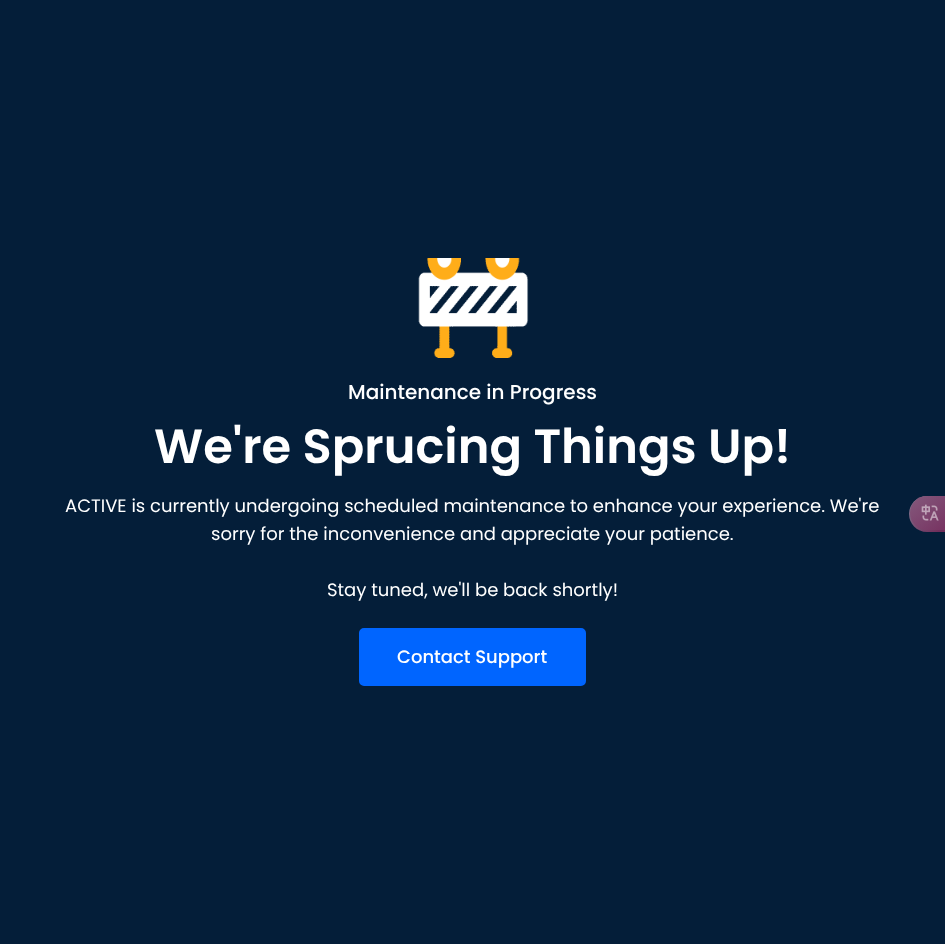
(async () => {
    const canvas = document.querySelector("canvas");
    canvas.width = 945;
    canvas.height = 944;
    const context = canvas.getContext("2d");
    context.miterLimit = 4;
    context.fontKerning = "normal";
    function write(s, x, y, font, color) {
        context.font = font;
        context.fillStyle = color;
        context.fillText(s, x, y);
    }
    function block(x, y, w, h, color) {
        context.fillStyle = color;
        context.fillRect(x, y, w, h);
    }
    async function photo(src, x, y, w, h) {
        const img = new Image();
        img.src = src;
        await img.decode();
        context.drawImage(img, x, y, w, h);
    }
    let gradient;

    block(0, 0, 945, 944, "rgb(4, 30, 57)");
    await photo("media/1.png", 418, 258, 111, 100);
    write("Maintenance in Progress", 348, 399, "500 20px Poppins", "rgb(255, 255, 255)");
    write("We're Sprucing Things Up!", 154, 463, "600 48px Poppins", "rgb(255, 255, 255)");
    write("ACTIVE is currently undergoing scheduled maintenance to enhance your experience. We're", 65, 512, "18px Poppins", "rgb(255, 255, 255)");
    write("sorry for the inconvenience and appreciate your patience.", 211, 540, "18px Poppins", "rgb(255, 255, 255)");
    write("Stay tuned, we'll be back shortly!", 327, 596, "18px Poppins", "rgb(255, 255, 255)");
    context.fillStyle = "rgb(0, 101, 255)";
    context.beginPath();
    context.roundRect(360, 629, 225, 56, 4);
    context.fill();
    context.strokeStyle = "rgb(0, 101, 255)";
    context.lineWidth = 2;
    context.stroke();
    write("Contact Support", 397, 663, "500 18px Poppins", "rgb(255, 255, 255)");
    gradient = context.createLinearGradient(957, 539, 917, 489);
    gradient.addColorStop(0.26, "rgb(112, 45, 90)");
    gradient.addColorStop(0.89, "rgb(130, 118, 142)");
    context.fillStyle = gradient;
    context.beginPath();
    context.moveTo(927, 496);
    context.lineTo(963, 496);
    context.lineTo(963, 532);
    context.lineTo(927, 532);
    context.bezierCurveTo(917, 532, 909, 524, 909, 514);
    context.bezierCurveTo(909, 504, 917, 496, 927, 496);
    context.closePath();
    context.fill();
    gradient = context.createLinearGradient(918, 490, 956, 536);
    gradient.addColorStop(0.13, "rgb(130, 83, 120)");
    gradient.addColorStop(0.77, "rgb(120, 53, 99)");
    context.fillStyle = gradient;
    context.beginPath();
    context.moveTo(927, 496);
    context.lineTo(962, 496);
    context.lineTo(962, 530);
    context.lineTo(927, 530);
    context.bezierCurveTo(917.5, 530, 910, 522.5, 910, 513);
    context.bezierCurveTo(910, 503.5, 917.5, 496, 927, 496);
    context.closePath();
    context.fill();
    await photo("media/2.png", 921, 504, 18, 17);
})();
